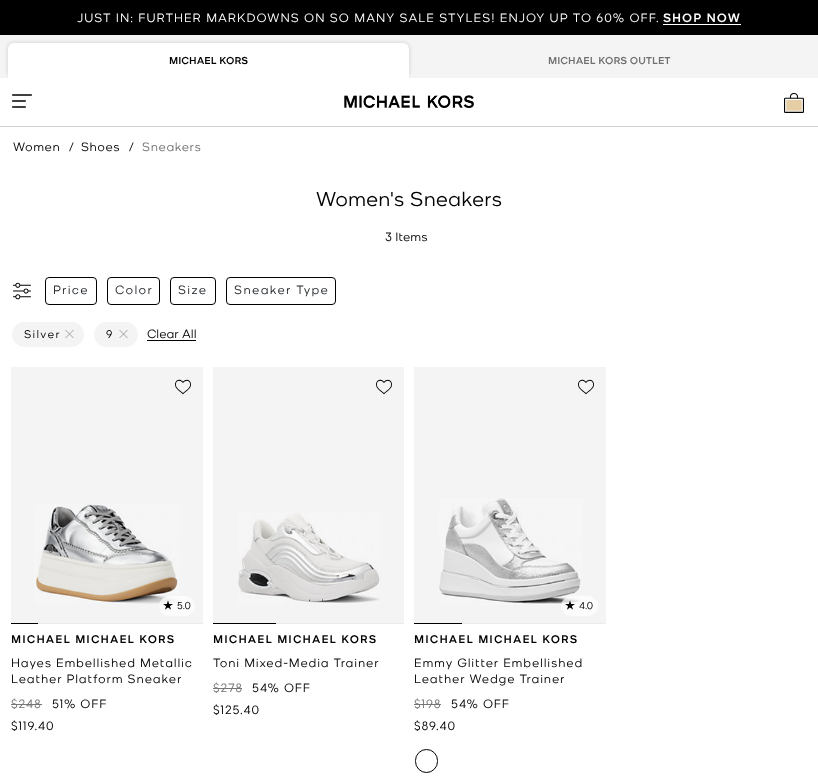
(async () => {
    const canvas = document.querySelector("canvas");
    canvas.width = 818;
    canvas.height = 781;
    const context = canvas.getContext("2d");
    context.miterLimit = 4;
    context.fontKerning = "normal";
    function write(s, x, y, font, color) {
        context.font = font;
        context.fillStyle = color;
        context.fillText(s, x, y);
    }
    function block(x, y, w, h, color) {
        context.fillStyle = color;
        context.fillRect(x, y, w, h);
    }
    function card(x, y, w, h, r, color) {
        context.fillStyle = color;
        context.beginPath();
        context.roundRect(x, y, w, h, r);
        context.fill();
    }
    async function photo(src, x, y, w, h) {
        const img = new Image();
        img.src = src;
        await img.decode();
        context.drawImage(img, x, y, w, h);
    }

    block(0, 0, 818, 781, "rgb(255, 255, 255)");
    block(0, 126, 818, 1, "rgb(209, 209, 209)");
    block(0, 0, 818, 35, "rgb(0, 0, 0)");
    context.letterSpacing = "1px";
    write("JUST IN: FURTHER MARKDOWNS ON SO MANY SALE STYLES! ENJOY UP TO 60% OFF.", 77, 22, "300 12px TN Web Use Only", "rgb(255, 255, 255)");
    write("SHOP NOW", 663, 22, "500 12px TN Web Use Only", "rgb(255, 255, 255)");
    block(663, 24, 78, 1, "rgb(255, 255, 255)");
    block(0, 35, 818, 43, "rgb(244, 244, 244)");
    context.save();
    context.beginPath();
    context.rect(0, 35, 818, 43);
    context.clip();
    context.fillStyle = "rgba(0, 0, 0, 0.16)";
    context.filter = "blur(2px)";
    context.beginPath();
    context.roundRect(8, 43, 401, 35, 6);
    context.fill();
    context.filter = "none";
    context.restore();
    context.fillStyle = "rgb(255, 255, 255)";
    context.beginPath();
    context.roundRect(8, 43, 401, 35, [6, 6, 0, 0]);
    context.fill();
    context.letterSpacing = "0px";
    write("MICHAEL KORS", 169, 64, "500 10px TN Web Use Only", "rgb(0, 0, 0)");
    write("MICHAEL KORS OUTLET", 548, 64, "500 10px TN Web Use Only", "rgb(112, 112, 112)");
    await photo("media/1.png", 12, 94, 20, 14);
    await photo("media/2.png", 344, 95, 130, 13);
    await photo("media/3.png", 784, 93, 20, 20);
    context.letterSpacing = "0.5px";
    write("Women", 13, 151, "300 12px TN Web Use Only", "rgb(0, 0, 0)");
    write("/", 69, 151, "300 12px TN Web Use Only", "rgb(0, 0, 0)");
    write("Shoes", 81, 151, "300 12px TN Web Use Only", "rgb(0, 0, 0)");
    write("/", 129, 151, "300 12px TN Web Use Only", "rgb(0, 0, 0)");
    write("Sneakers", 142, 151, "300 12px TN Web Use Only", "rgb(112, 112, 112)");
    context.letterSpacing = "0px";
    write("Women's Sneakers", 316, 206, "300 20px TN Web Use Only", "rgb(0, 0, 0)");
    write("3 Items", 385, 241, "300 12px TN Web Use Only", "rgb(0, 0, 0)");
    await photo("media/4.png", 13, 282, 18, 18);
    context.beginPath();
    context.roundRect(45.5, 277.5, 51, 27, 3.5);
    context.strokeStyle = "rgb(0, 0, 0)";
    context.stroke();
    context.letterSpacing = "1.25px";
    write("Price", 53, 294, "300 12px TN Web Use Only", "rgb(33, 37, 41)");
    context.beginPath();
    context.roundRect(107.5, 277.5, 52, 27, 3.5);
    context.stroke();
    write("Color", 115, 294, "300 12px TN Web Use Only", "rgb(33, 37, 41)");
    context.beginPath();
    context.roundRect(170.5, 277.5, 45, 27, 3.5);
    context.stroke();
    write("Size", 178, 294, "300 12px TN Web Use Only", "rgb(33, 37, 41)");
    context.beginPath();
    context.roundRect(226.5, 277.5, 109, 27, 3.5);
    context.stroke();
    write("Sneaker Type", 234, 294, "300 12px TN Web Use Only", "rgb(33, 37, 41)");
    card(12, 322, 72, 25, 12.5, "rgb(244, 244, 244)");
    write("Silver", 24, 338, "300 11px TN Web Use Only", "rgb(0, 0, 0)");
    await photo("media/5.png", 65, 330, 9, 8);
    card(94, 322, 44, 25, 12.5, "rgb(244, 244, 244)");
    write("9", 106, 338, "300 11px TN Web Use Only", "rgb(0, 0, 0)");
    await photo("media/5.png", 119, 330, 9, 8);
    context.letterSpacing = "0px";
    write("Clear All", 147, 338, "300 12px TN Web Use Only", "rgb(0, 0, 0)");
    block(147, 340, 49, 1, "rgb(0, 0, 0)");
    block(11, 367, 192, 256, "rgb(244, 244, 244)");
    await photo("media/6.png", 175, 379, 16, 16);
    await photo("media/7.png", 34, 504, 146, 100);
    block(11, 623, 27, 1, "rgb(0, 0, 0)");
    block(38, 623, 165, 1, "rgb(235, 235, 235)");
    card(159, 596, 36, 20, 10, "rgba(255, 255, 255, 0.7)");
    await photo("media/8.png", 163, 600, 10, 10);
    write("5.0", 177, 609, "300 10px TN Web Use Only", "rgb(0, 0, 0)");
    context.letterSpacing = "1.1px";
    write("MICHAEL MICHAEL KORS", 11, 643, "500 11px TN Web Use Only", "rgb(0, 0, 0)");
    context.letterSpacing = "0.8px";
    write("Hayes Embellished Metallic", 11, 667, "300 12px TN Web Use Only", "rgb(0, 0, 0)");
    write("Leather Platform Sneaker", 11, 683, "300 12px TN Web Use Only", "rgb(0, 0, 0)");
    write("$248", 11, 708, "300 12px TN Web Use Only", "rgb(118, 118, 118)");
    block(11, 704, 31, 1, "rgb(118, 118, 118)");
    write("51% OFF", 52, 708, "300 12px TN Web Use Only", "rgb(0, 0, 0)");
    write("$119.40", 11, 730, "300 12px TN Web Use Only", "rgb(0, 0, 0)");
    block(213, 367, 191, 256, "rgb(244, 244, 244)");
    await photo("media/6.png", 376, 379, 16, 16);
    await photo("media/9.png", 238, 513, 142, 91);
    block(213, 623, 63, 1, "rgb(0, 0, 0)");
    block(276, 623, 128, 1, "rgb(235, 235, 235)");
    context.letterSpacing = "1.1px";
    write("MICHAEL MICHAEL KORS", 213, 643, "500 11px TN Web Use Only", "rgb(0, 0, 0)");
    context.letterSpacing = "0.8px";
    write("Toni Mixed-Media Trainer", 213, 667, "300 12px TN Web Use Only", "rgb(0, 0, 0)");
    write("$278", 213, 692, "300 12px TN Web Use Only", "rgb(118, 118, 118)");
    block(213, 688, 29, 1, "rgb(118, 118, 118)");
    write("54% OFF", 252, 692, "300 12px TN Web Use Only", "rgb(0, 0, 0)");
    write("$125.40", 213, 714, "300 12px TN Web Use Only", "rgb(0, 0, 0)");
    block(414, 367, 192, 256, "rgb(244, 244, 244)");
    await photo("media/6.png", 578, 379, 16, 16);
    await photo("media/10.png", 439, 498, 144, 107);
    block(414, 623, 48, 1, "rgb(0, 0, 0)");
    block(462, 623, 144, 1, "rgb(235, 235, 235)");
    card(561, 596, 37, 20, 10, "rgba(255, 255, 255, 0.7)");
    await photo("media/11.png", 565, 600, 10, 10);
    context.letterSpacing = "0px";
    write("4.0", 579, 609, "300 10px TN Web Use Only", "rgb(0, 0, 0)");
    context.letterSpacing = "1.1px";
    write("MICHAEL MICHAEL KORS", 414, 643, "500 11px TN Web Use Only", "rgb(0, 0, 0)");
    context.letterSpacing = "0.8px";
    write("Emmy Glitter Embellished", 414, 667, "300 12px TN Web Use Only", "rgb(0, 0, 0)");
    write("Leather Wedge Trainer", 414, 683, "300 12px TN Web Use Only", "rgb(0, 0, 0)");
    write("$198", 414, 708, "300 12px TN Web Use Only", "rgb(118, 118, 118)");
    block(414, 704, 27, 1, "rgb(118, 118, 118)");
    write("54% OFF", 451, 708, "300 12px TN Web Use Only", "rgb(0, 0, 0)");
    write("$89.40", 414, 730, "300 12px TN Web Use Only", "rgb(0, 0, 0)");
    context.beginPath();
    context.roundRect(415.5, 749.5, 22, 23, 11);
    context.stroke();
})();
